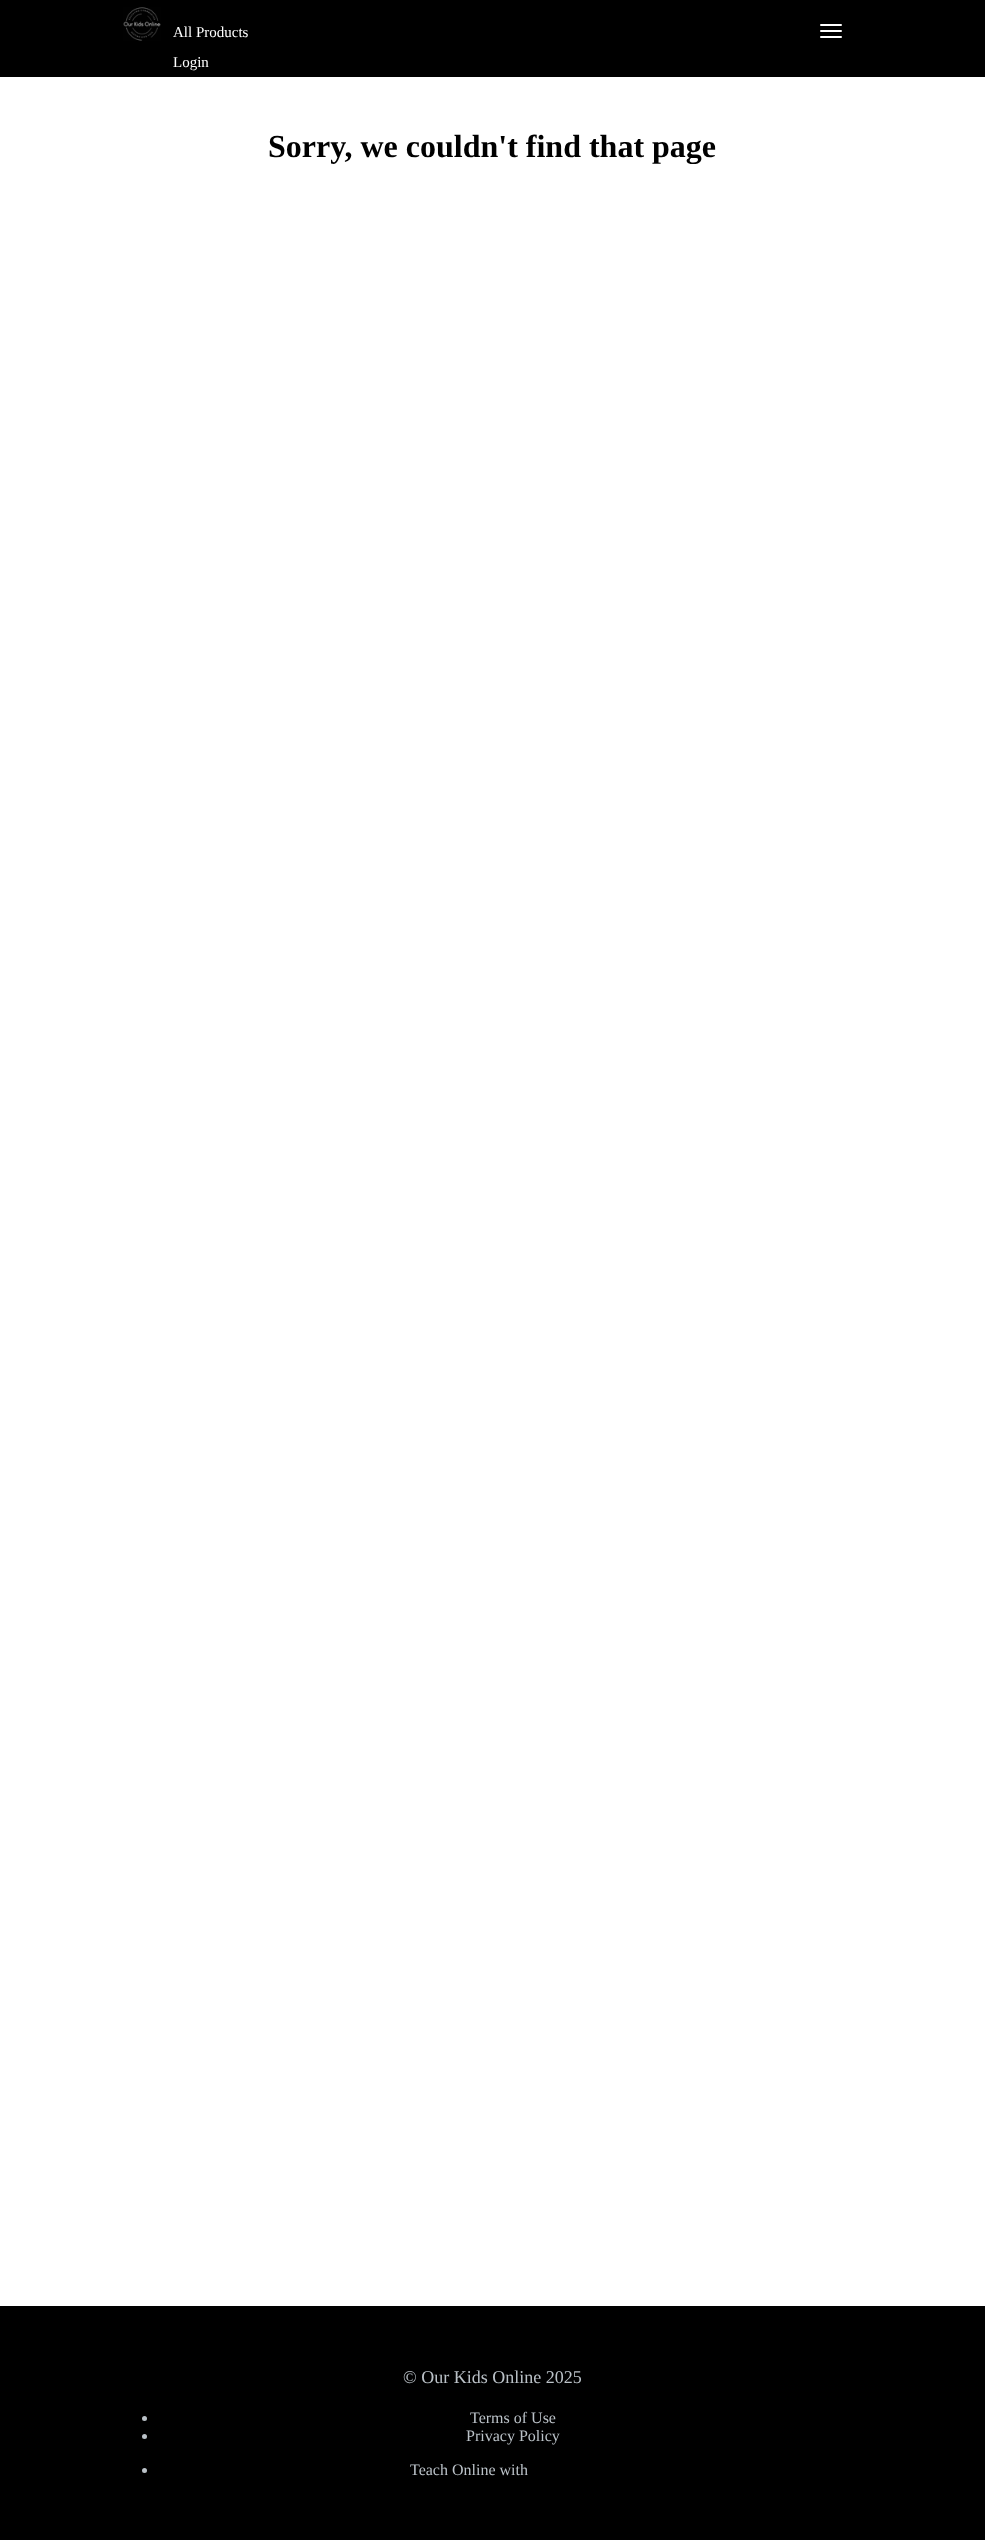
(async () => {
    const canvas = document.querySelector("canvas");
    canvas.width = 985;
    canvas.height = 2540;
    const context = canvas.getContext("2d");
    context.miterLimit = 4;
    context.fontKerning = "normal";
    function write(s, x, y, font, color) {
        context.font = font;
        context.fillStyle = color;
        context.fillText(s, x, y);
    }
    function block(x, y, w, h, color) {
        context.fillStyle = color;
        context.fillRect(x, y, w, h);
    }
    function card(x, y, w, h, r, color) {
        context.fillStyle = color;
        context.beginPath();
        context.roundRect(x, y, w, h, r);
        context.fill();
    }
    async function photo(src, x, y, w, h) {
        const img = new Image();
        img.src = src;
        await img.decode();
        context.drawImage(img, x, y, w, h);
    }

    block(0, 0, 985, 2540, "rgb(255, 255, 255)");
    block(0, 0, 985, 77, "rgb(0, 0, 0)");
    await photo("media/1.png", 123, 7, 38, 34);
    write("All Products", 173, 37, "15px Liberation Serif", "rgb(255, 255, 255)");
    write("Login", 173, 67, "15px Liberation Serif", "rgb(255, 255, 255)");
    card(820, 24, 22, 2, 1, "rgb(255, 255, 255)");
    card(820, 30, 22, 2, 1, "rgb(255, 255, 255)");
    card(820, 36, 22, 2, 1, "rgb(255, 255, 255)");
    write("Sorry, we couldn't find that page", 268, 157, "bold 32px Liberation Serif", "rgb(0, 0, 0)");
    block(0, 2306, 985, 234, "rgb(0, 0, 0)");
    write("© Our Kids Online 2025", 403, 2383, "18px Liberation Serif", "rgb(186, 193, 199)");
    context.beginPath();
    context.arc(144.5, 2418.5, 2.5, 0, Math.PI * 2);
    context.fill();
    write("Terms of Use", 470, 2423, "16px Liberation Serif", "rgb(186, 193, 199)");
    context.beginPath();
    context.arc(144.5, 2436.5, 2.5, 0, Math.PI * 2);
    context.fill();
    write("Privacy Policy", 466, 2441, "16px Liberation Serif", "rgb(186, 193, 199)");
    context.beginPath();
    context.arc(144.5, 2470.5, 2.5, 0, Math.PI * 2);
    context.fill();
    write("Teach Online with", 410, 2475, "16px Liberation Serif", "rgb(186, 193, 199)");
})();
